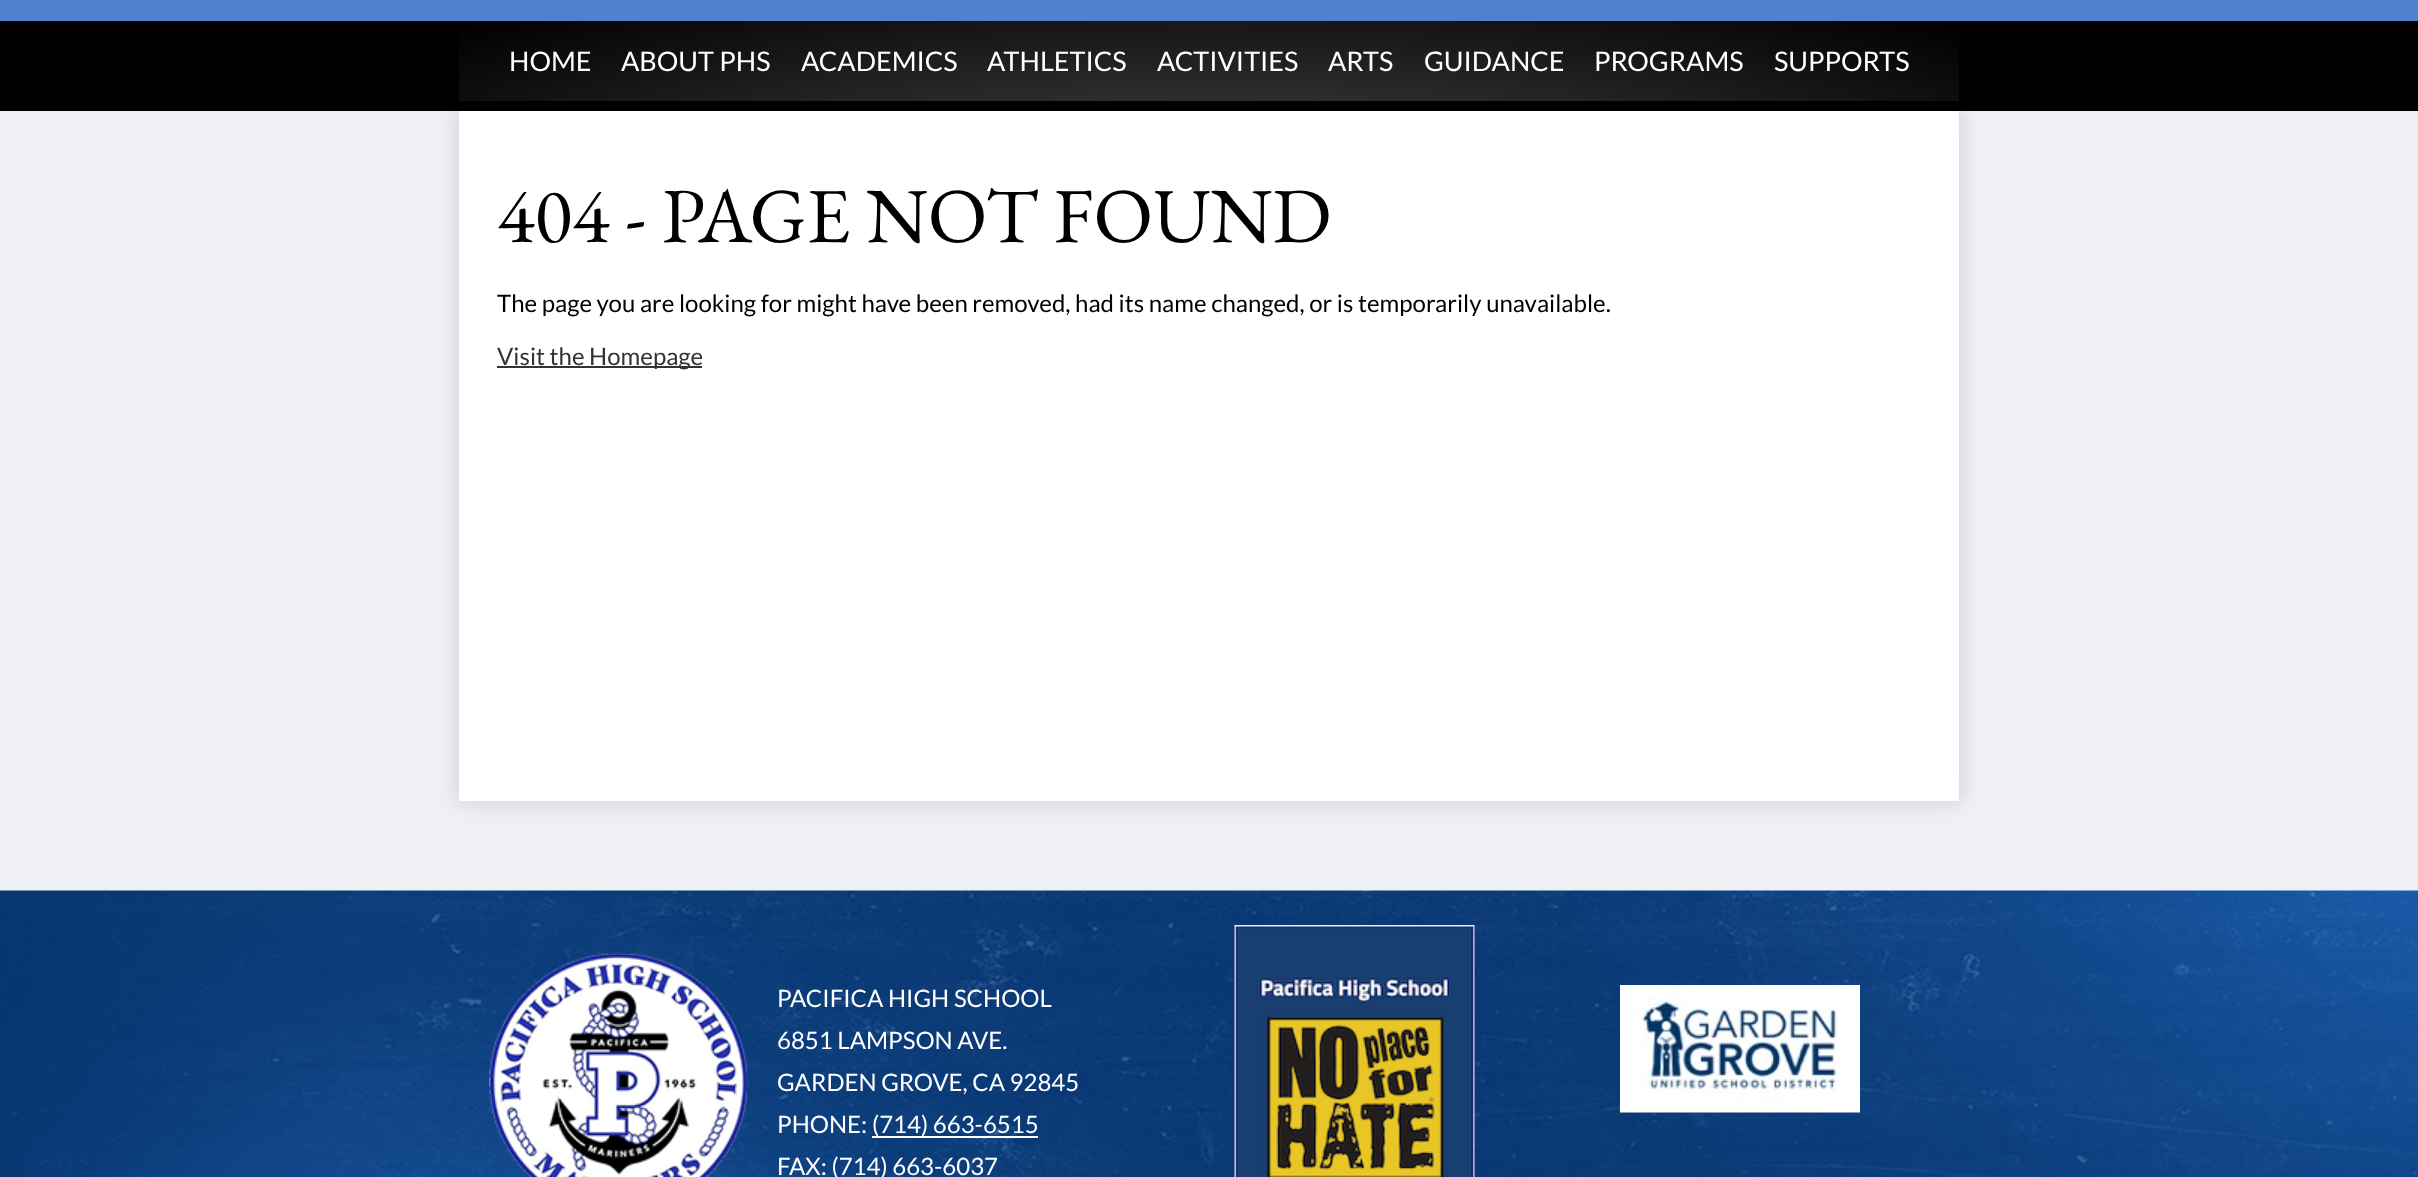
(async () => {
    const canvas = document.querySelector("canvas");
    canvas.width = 2418;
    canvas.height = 1177;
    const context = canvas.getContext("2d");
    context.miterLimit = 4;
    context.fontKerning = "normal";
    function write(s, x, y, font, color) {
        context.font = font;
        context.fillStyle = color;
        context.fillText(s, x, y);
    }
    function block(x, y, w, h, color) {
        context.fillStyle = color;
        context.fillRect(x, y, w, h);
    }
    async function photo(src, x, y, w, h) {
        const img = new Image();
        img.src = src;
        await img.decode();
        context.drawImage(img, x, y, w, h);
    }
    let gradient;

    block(0, 0, 2418, 1177, "rgb(238, 240, 245)");
    block(0, 0, 2418, 21, "rgb(80, 129, 209)");
    context.fillStyle = "rgba(0, 0, 0, 0.15)";
    context.filter = "blur(11px)";
    context.beginPath();
    context.rect(459, 111, 1500, 690);
    context.fill();
    context.filter = "none";
    block(0, 21, 2418, 90, "rgb(0, 0, 0)");
    gradient = context.createRadialGradient(1209, 836.79, 0, 1209, 836.79, 1061);
    gradient.addColorStop(0, "rgb(77, 77, 77)");
    gradient.addColorStop(1, "rgb(0, 0, 0)");
    context.fillStyle = gradient;
    context.beginPath();
    context.rect(459, 21, 1500, 80);
    context.save();
    context.clip();
    context.scale(1, 265 / 1061);
    context.fillRect(0, 0, 2418, 4713);
    context.restore();
    write("HOME", 509, 71, "27px Lato", "rgb(255, 255, 255)");
    write("ABOUT PHS", 621, 71, "27px Lato", "rgb(255, 255, 255)");
    write("ACADEMICS", 801, 71, "27px Lato", "rgb(255, 255, 255)");
    write("ATHLETICS", 987, 71, "27px Lato", "rgb(255, 255, 255)");
    write("ACTIVITIES", 1157, 71, "27px Lato", "rgb(255, 255, 255)");
    write("ARTS", 1328, 71, "27px Lato", "rgb(255, 255, 255)");
    write("GUIDANCE", 1424, 71, "27px Lato", "rgb(255, 255, 255)");
    write("PROGRAMS", 1594, 71, "27px Lato", "rgb(255, 255, 255)");
    write("SUPPORTS", 1774, 71, "27px Lato", "rgb(255, 255, 255)");
    block(459, 111, 1500, 690, "rgb(255, 255, 255)");
    write("404 - PAGE NOT FOUND", 497, 242, "78px EB Garamond", "rgb(0, 0, 0)");
    write("The page you are looking for might have been removed, had its name changed, or is temporarily unavailable.", 497, 312, "24px Lato", "rgb(0, 0, 0)");
    block(497, 366, 205, 2, "rgb(51, 51, 51)");
    write("Visit the Homepage", 497, 365, "24px Lato", "rgb(51, 51, 51)");
    await photo("media/1.png", 0, 890, 2418, 287);
    await photo("media/2.png", 489, 953, 258, 224);
    write("PACIFICA HIGH SCHOOL", 777, 1007, "24px Lato", "rgb(255, 255, 255)");
    write("6851 LAMPSON AVE.", 777, 1049, "24px Lato", "rgb(255, 255, 255)");
    write("GARDEN GROVE, CA 92845", 777, 1091, "24px Lato", "rgb(255, 255, 255)");
    write("PHONE:", 777, 1133, "24px Lato", "rgb(255, 255, 255)");
    block(872, 1136, 166, 2, "rgb(255, 255, 255)");
    write("(714) 663-6515", 872, 1133, "24px Lato", "rgb(255, 255, 255)");
    write("FAX: (714) 663-6037", 777, 1175, "24px Lato", "rgb(255, 255, 255)");
    await photo("media/3.png", 1234, 925, 241, 252);
    await photo("media/4.png", 1620, 985, 240, 128);
})();
